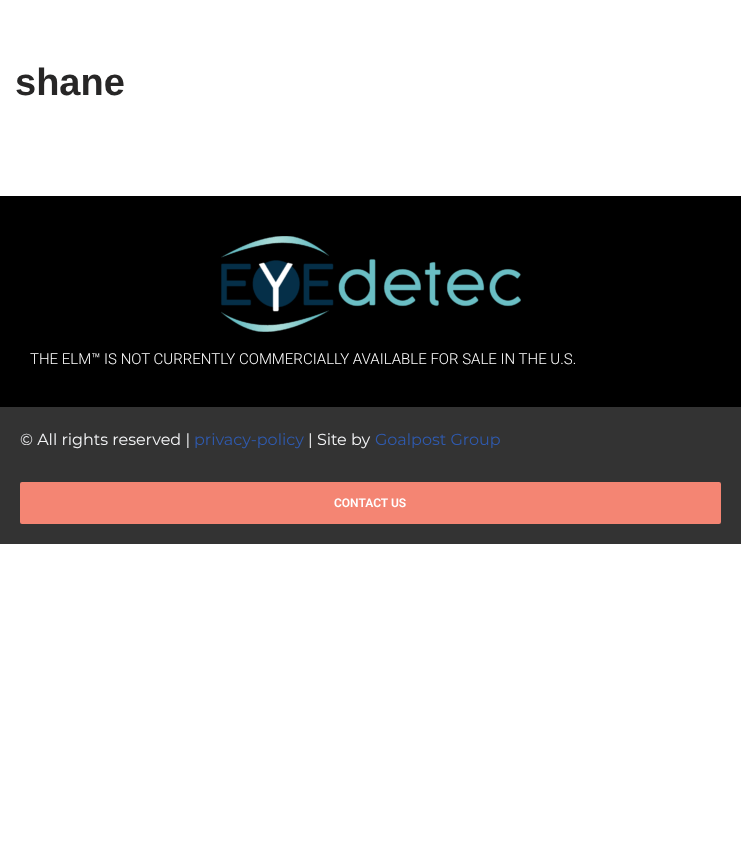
(async () => {
    const canvas = document.querySelector("canvas");
    canvas.width = 741;
    canvas.height = 852;
    const context = canvas.getContext("2d");
    context.miterLimit = 4;
    context.fontKerning = "normal";
    function write(s, x, y, font, color) {
        context.font = font;
        context.fillStyle = color;
        context.fillText(s, x, y);
    }
    function block(x, y, w, h, color) {
        context.fillStyle = color;
        context.fillRect(x, y, w, h);
    }
    function card(x, y, w, h, r, color) {
        context.fillStyle = color;
        context.beginPath();
        context.roundRect(x, y, w, h, r);
        context.fill();
    }
    async function photo(src, x, y, w, h) {
        const img = new Image();
        img.src = src;
        await img.decode();
        context.drawImage(img, x, y, w, h);
    }

    block(0, 0, 741, 852, "rgb(255, 255, 255)");
    write("shane", 15, 95, "bold 38px Liberation Sans", "rgb(39, 38, 38)");
    block(0, 196, 741, 211, "rgb(0, 0, 0)");
    await photo("media/1.png", 221, 236, 300, 96);
    write("THE ELM™ IS NOT CURRENTLY COMMERCIALLY AVAILABLE FOR SALE IN THE U.S.", 30, 364, "300 15px Roboto", "rgb(255, 255, 255)");
    block(0, 407, 741, 137, "rgb(51, 51, 51)");
    write("© All rights reserved |", 20, 445, "16px Montserrat", "rgb(244, 245, 247)");
    write("privacy-policy", 194, 445, "16px Montserrat", "rgb(47, 90, 174)");
    write("| Site by", 308, 445, "16px Montserrat", "rgb(244, 245, 247)");
    write("Goalpost Group", 375, 445, "16px Montserrat", "rgb(47, 90, 174)");
    card(20, 482, 701, 42, 2, "rgb(244, 133, 115)");
    write("CONTACT US", 334, 507, "600 12px Roboto", "rgb(255, 255, 255)");
})();
